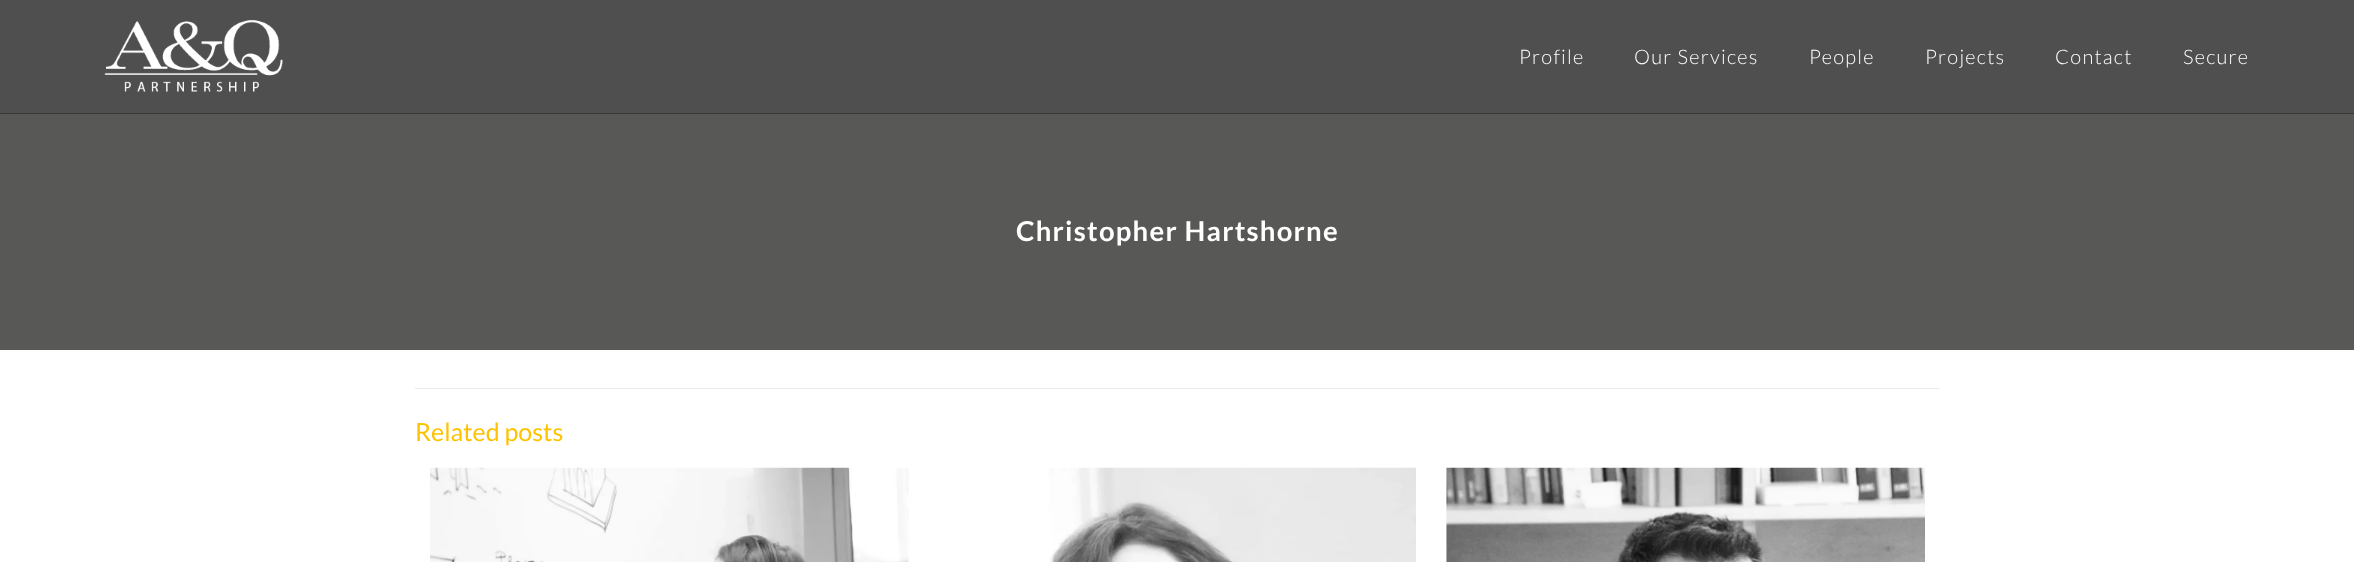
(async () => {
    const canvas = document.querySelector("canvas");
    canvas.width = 2354;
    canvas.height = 562;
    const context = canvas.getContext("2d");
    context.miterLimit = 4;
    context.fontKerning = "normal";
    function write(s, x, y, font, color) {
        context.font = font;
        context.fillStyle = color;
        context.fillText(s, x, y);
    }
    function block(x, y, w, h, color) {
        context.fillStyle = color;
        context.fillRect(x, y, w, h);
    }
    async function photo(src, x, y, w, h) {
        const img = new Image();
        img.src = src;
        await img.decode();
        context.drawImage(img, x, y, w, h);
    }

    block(0, 0, 2354, 562, "rgb(255, 255, 255)");
    block(0, 0, 2354, 113, "rgb(79, 79, 79)");
    block(0, 113, 2354, 1, "rgb(56, 56, 56)");
    await photo("media/1.png", 104, 20, 179, 72);
    context.letterSpacing = "1.25px";
    write("Profile", 1519, 64, "300 20px Lato", "rgb(255, 255, 255)");
    write("Our Services", 1634, 64, "300 20px Lato", "rgb(255, 255, 255)");
    write("People", 1809, 64, "300 20px Lato", "rgb(255, 255, 255)");
    write("Projects", 1925, 64, "300 20px Lato", "rgb(255, 255, 255)");
    write("Contact", 2055, 64, "300 20px Lato", "rgb(255, 255, 255)");
    write("Secure", 2183, 64, "300 20px Lato", "rgb(255, 255, 255)");
    block(0, 114, 2354, 236, "rgb(88, 88, 87)");
    write("Christopher Hartshorne", 1016, 241, "bold 27.5px Lato", "rgb(255, 255, 255)");
    block(415, 388, 1525, 1, "rgb(235, 235, 235)");
    context.letterSpacing = "0px";
    write("Related posts", 415, 441, "25px Lato", "rgb(253, 195, 0)");
    await photo("media/2.png", 430, 467, 479, 95);
    await photo("media/3.png", 1049, 467, 367, 95);
    await photo("media/4.png", 1446, 467, 479, 95);
})();
